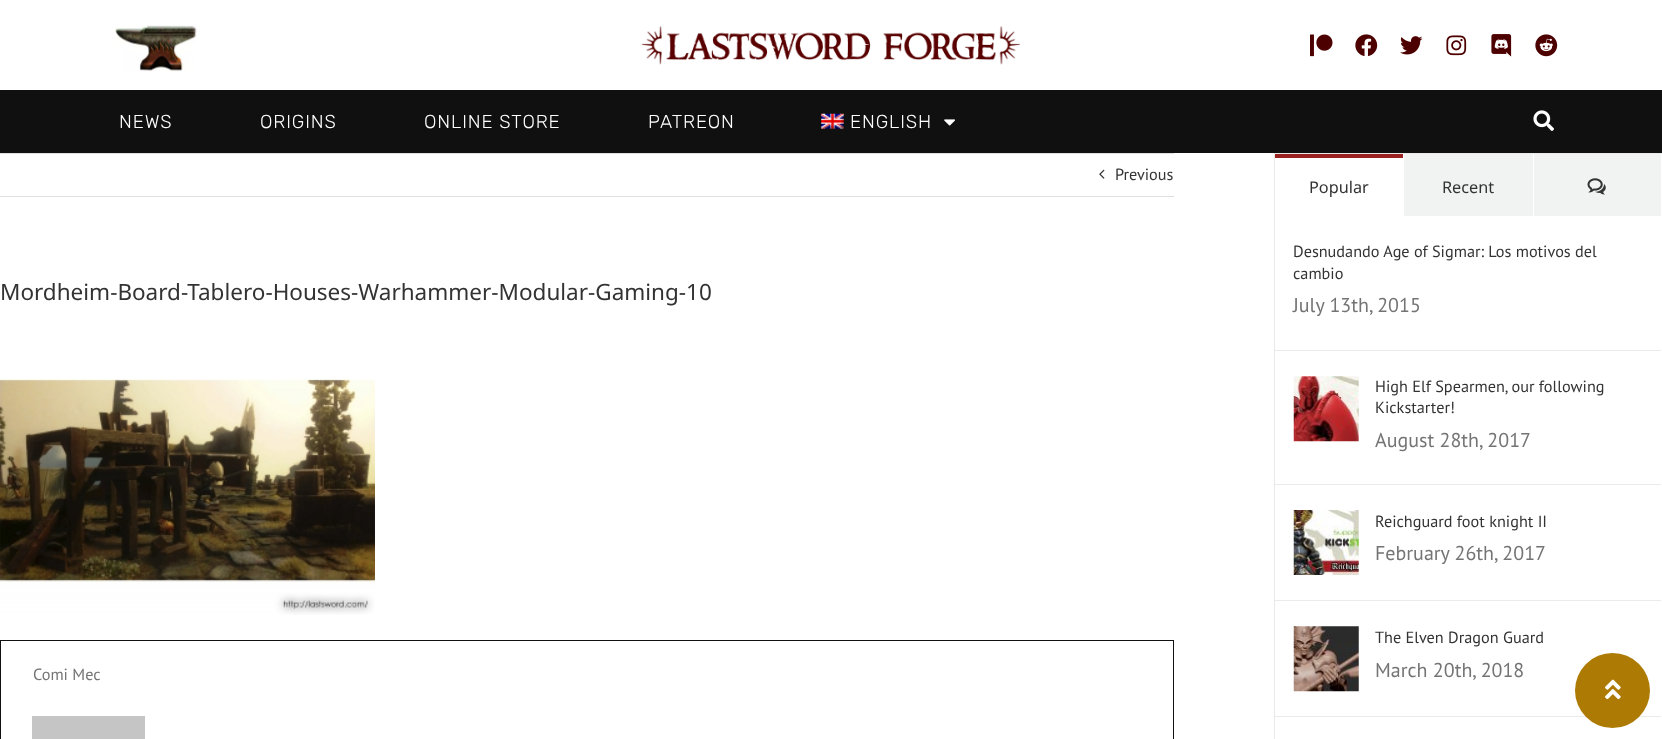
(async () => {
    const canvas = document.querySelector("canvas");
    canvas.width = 1662;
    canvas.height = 739;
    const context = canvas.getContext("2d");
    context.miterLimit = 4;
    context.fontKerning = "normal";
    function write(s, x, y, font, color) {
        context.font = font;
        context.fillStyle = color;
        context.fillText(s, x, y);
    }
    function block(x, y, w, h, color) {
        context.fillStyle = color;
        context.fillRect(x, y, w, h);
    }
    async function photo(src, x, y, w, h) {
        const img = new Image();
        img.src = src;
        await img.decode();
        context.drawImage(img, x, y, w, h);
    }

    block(0, 0, 1662, 739, "rgb(255, 255, 255)");
    await photo("media/1.png", 115, 25, 82, 48);
    await photo("media/2.png", 641, 26, 379, 39);
    await photo("media/3.png", 1310, 34, 23, 23);
    await photo("media/4.png", 1355, 34, 23, 22);
    await photo("media/5.png", 1400, 36, 23, 19);
    await photo("media/6.png", 1446, 35, 21, 21);
    await photo("media/7.png", 1491, 34, 21, 23);
    await photo("media/8.png", 1535, 34, 23, 23);
    block(0, 90, 1662, 63, "rgb(16, 16, 16)");
    context.letterSpacing = "0.9px";
    write("NEWS", 119, 128, "300 18.75px Rubik", "rgb(255, 255, 255)");
    write("ORIGINS", 260, 128, "300 18.75px Rubik", "rgb(255, 255, 255)");
    write("ONLINE STORE", 424, 128, "300 18.75px Rubik", "rgb(255, 255, 255)");
    write("PATREON", 648, 128, "300 18.75px Rubik", "rgb(255, 255, 255)");
    await photo("media/9.png", 821, 113, 23, 16);
    write("ENGLISH", 850, 128, "300 18.75px Rubik", "rgb(255, 255, 255)");
    await photo("media/10.png", 944, 119, 11, 7);
    await photo("media/11.png", 1533, 110, 21, 21);
    block(0, 153, 1174, 1, "rgb(224, 222, 222)");
    block(0, 196, 1174, 1, "rgb(224, 222, 222)");
    await photo("media/12.png", 1099, 169, 6, 10);
    context.letterSpacing = "0px";
    write("Previous", 1115, 180, "16.25px PT Sans", "rgb(51, 51, 51)");
    write("Mordheim-Board-Tablero-Houses-Warhammer-Modular-Gaming-10", 0, 300, "22.5px Noto Sans", "rgb(51, 51, 51)");
    await photo("media/13.png", 0, 378, 375, 237);
    context.strokeStyle = "rgb(17, 17, 17)";
    context.strokeRect(0.5, 640.5, 1173, 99);
    write("Comi Mec", 33, 680, "16.25px PT Sans", "rgb(116, 116, 116)");
    block(32, 716, 113, 23, "rgb(197, 197, 197)");
    context.strokeStyle = "rgb(235, 234, 234)";
    context.strokeRect(1274.5, 153.5, 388, 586);
    block(1275, 154, 128, 4, "rgb(153, 33, 32)");
    write("Popular", 1309, 193, "16.25px Noto Sans", "rgb(51, 51, 51)");
    block(1404, 154, 129, 62, "rgb(241, 242, 242)");
    write("Recent", 1442, 193, "16.25px Noto Sans", "rgb(51, 51, 51)");
    block(1534, 154, 127, 62, "rgb(241, 242, 242)");
    await photo("media/14.png", 1587, 178, 19, 17);
    block(1275, 350, 386, 1, "rgb(235, 234, 234)");
    write("Desnudando Age of Sigmar: Los motivos del", 1293, 257, "16.25px PT Sans", "rgb(51, 51, 51)");
    write("cambio", 1293, 279, "16.25px PT Sans", "rgb(51, 51, 51)");
    write("July 13th, 2015", 1293, 312, "20px PT Sans", "rgb(116, 116, 116)");
    block(1275, 484, 386, 1, "rgb(235, 234, 234)");
    await photo("media/15.png", 1293, 376, 66, 66);
    write("High Elf Spearmen, our following", 1375, 392, "16.25px PT Sans", "rgb(51, 51, 51)");
    write("Kickstarter!", 1375, 413, "16.25px PT Sans", "rgb(51, 51, 51)");
    write("August 28th, 2017", 1375, 447, "20px PT Sans", "rgb(116, 116, 116)");
    block(1275, 600, 386, 1, "rgb(235, 234, 234)");
    await photo("media/16.png", 1293, 510, 66, 65);
    write("Reichguard foot knight II", 1375, 527, "16.25px PT Sans", "rgb(51, 51, 51)");
    write("February 26th, 2017", 1375, 560, "20px PT Sans", "rgb(116, 116, 116)");
    block(1275, 716, 386, 1, "rgb(235, 234, 234)");
    await photo("media/17.png", 1293, 626, 66, 66);
    write("The Elven Dragon Guard", 1375, 643, "16.25px PT Sans", "rgb(51, 51, 51)");
    write("March 20th, 2018", 1375, 677, "20px PT Sans", "rgb(116, 116, 116)");
    context.fillStyle = "rgb(173, 123, 3)";
    context.beginPath();
    context.arc(1612.5, 690.5, 37.5, 0, Math.PI * 2);
    context.fill();
    await photo("media/18.png", 1605, 679, 16, 21);
})();
